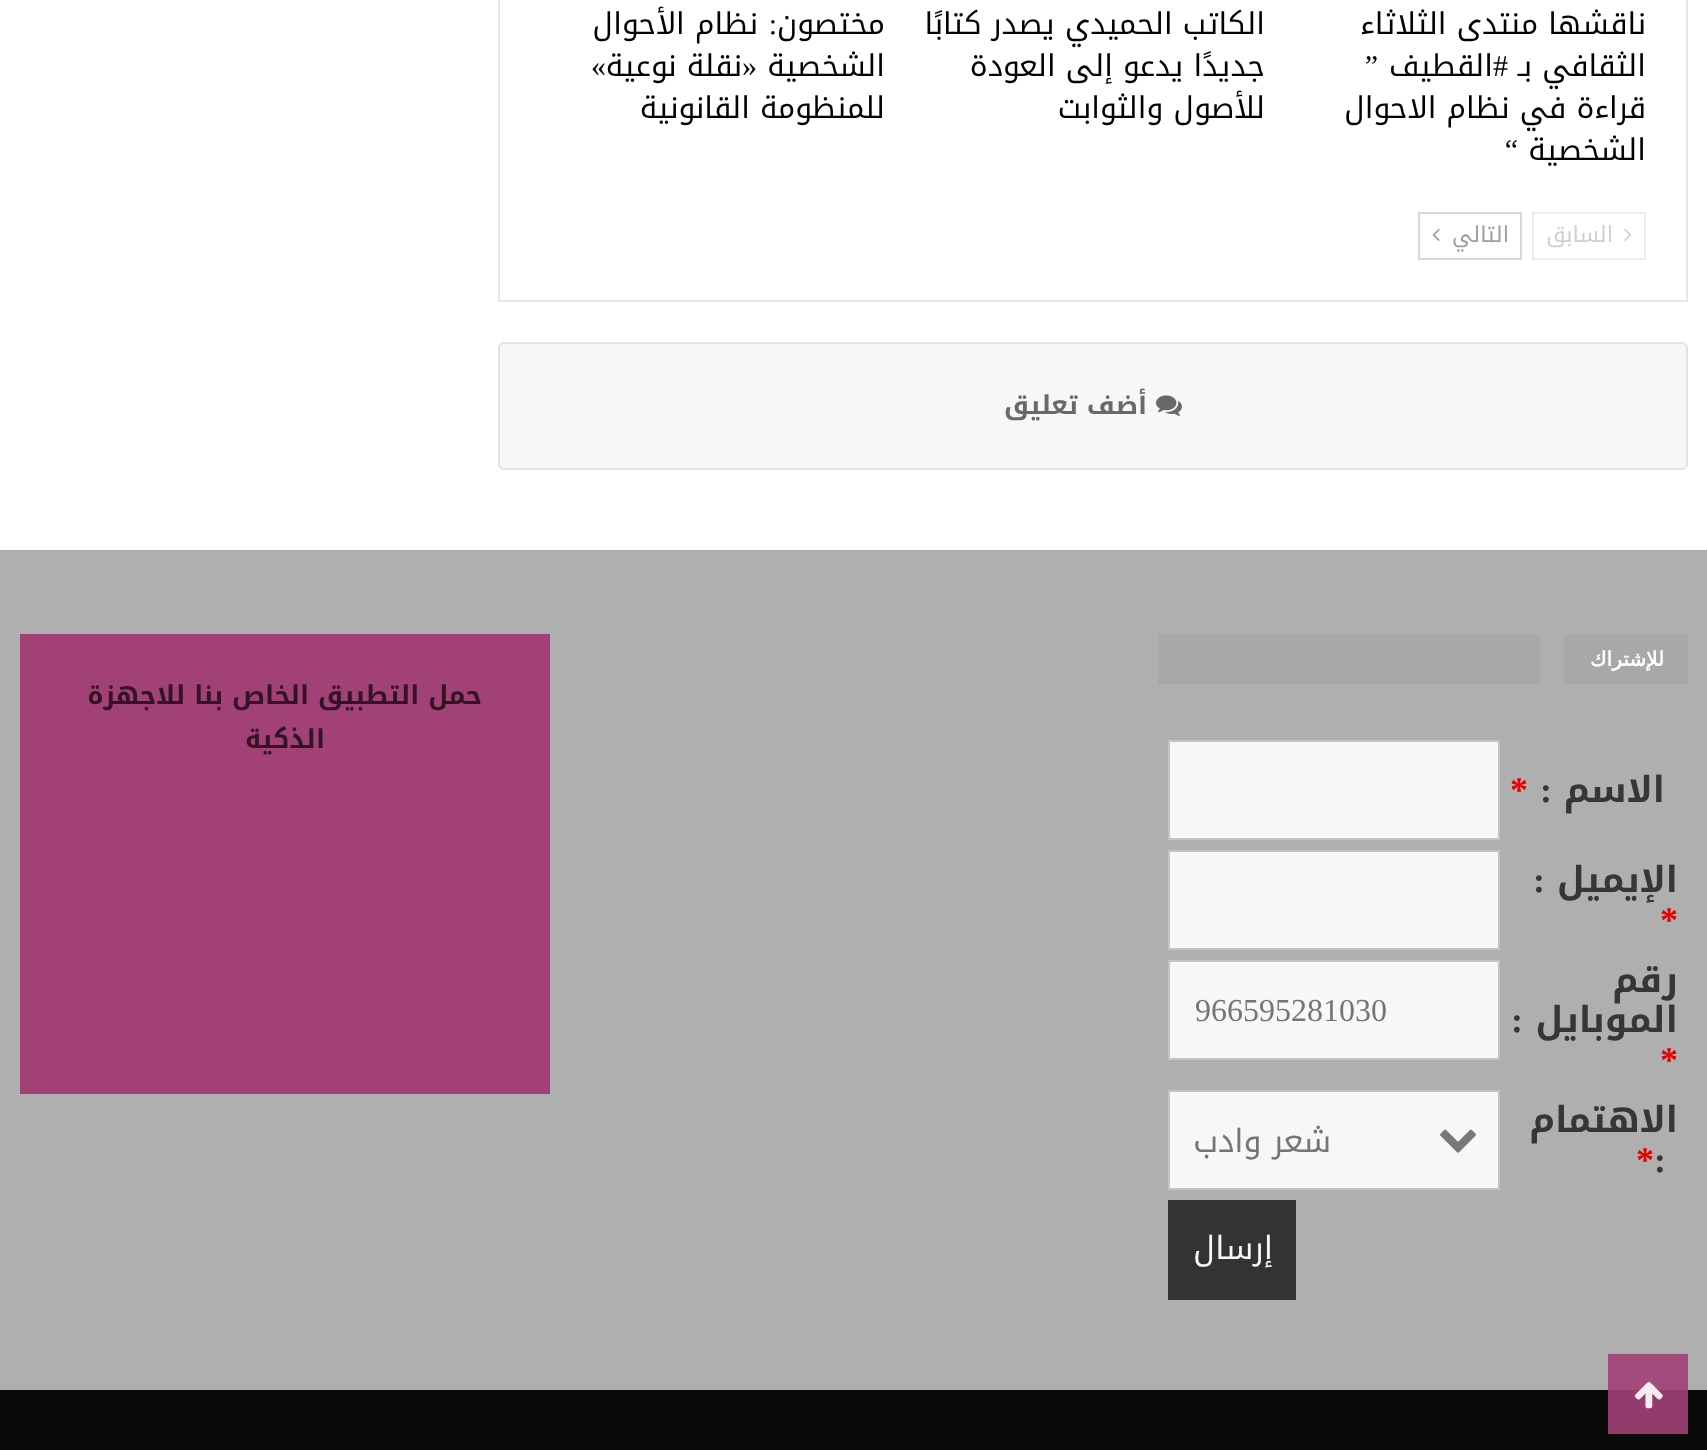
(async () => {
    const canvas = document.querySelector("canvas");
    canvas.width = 1707;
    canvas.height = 1450;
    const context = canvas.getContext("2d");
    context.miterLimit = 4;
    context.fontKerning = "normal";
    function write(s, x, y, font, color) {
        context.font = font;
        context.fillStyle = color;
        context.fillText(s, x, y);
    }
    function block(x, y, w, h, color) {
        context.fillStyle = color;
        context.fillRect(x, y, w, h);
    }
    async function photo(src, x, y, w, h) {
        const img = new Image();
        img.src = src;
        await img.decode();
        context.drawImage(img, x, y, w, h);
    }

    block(0, 0, 1707, 1450, "rgb(255, 255, 255)");
    context.strokeStyle = "rgb(232, 232, 232)";
    context.lineWidth = 2;
    context.strokeRect(499, -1, 1188, 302);
    context.direction = "rtl";
    write("ناقشها منتدى الثلاثاء", 1646, 34, "30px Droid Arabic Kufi", "rgb(2, 2, 2)");
    write("الثقافي بـ", 1646, 76, "30px Droid Arabic Kufi", "rgb(2, 2, 2)");
    write("#", 1508, 76, "30px Liberation Serif", "rgb(2, 2, 2)");
    write("القطيف", 1493, 76, "30px Droid Arabic Kufi", "rgb(2, 2, 2)");
    write("”", 1378, 76, "30px Liberation Serif", "rgb(2, 2, 2)");
    write("قراءة في نظام الاحوال", 1646, 118, "30px Droid Arabic Kufi", "rgb(2, 2, 2)");
    write("الشخصية", 1646, 160, "30px Droid Arabic Kufi", "rgb(2, 2, 2)");
    write("“", 1518, 160, "30px Liberation Serif", "rgb(2, 2, 2)");
    write("الكاتب الحميدي يصدر كتابًا", 1265, 34, "30px Droid Arabic Kufi", "rgb(2, 2, 2)");
    write("جديدًا يدعو إلى العودة", 1265, 76, "30px Droid Arabic Kufi", "rgb(2, 2, 2)");
    write("للأصول والثوابت", 1265, 118, "30px Droid Arabic Kufi", "rgb(2, 2, 2)");
    write("مختصون", 885, 34, "30px Droid Arabic Kufi", "rgb(2, 2, 2)");
    write(":", 777, 34, "30px Liberation Serif", "rgb(2, 2, 2)");
    write("نظام الأحوال", 758, 34, "30px Droid Arabic Kufi", "rgb(2, 2, 2)");
    write("الشخصية", 885, 76, "30px Droid Arabic Kufi", "rgb(2, 2, 2)");
    write("«", 757, 76, "30px Liberation Serif", "rgb(2, 2, 2)");
    write("نقلة نوعية", 742, 76, "30px Droid Arabic Kufi", "rgb(2, 2, 2)");
    write("»", 606, 76, "30px Liberation Serif", "rgb(2, 2, 2)");
    write("للمنظومة القانونية", 885, 118, "30px Droid Arabic Kufi", "rgb(2, 2, 2)");
    context.strokeStyle = "rgb(236, 236, 236)";
    context.strokeRect(1533, 213, 112, 46);
    await photo("media/1.png", 1624, 229, 8, 12);
    write("السابق", 1613, 242, "22px Droid Arabic Kufi", "rgb(207, 207, 207)");
    context.strokeStyle = "rgb(216, 216, 216)";
    context.strokeRect(1419, 213, 102, 46);
    write("التالي", 1509, 242, "22px Droid Arabic Kufi", "rgb(158, 158, 158)");
    await photo("media/2.png", 1432, 228, 8, 13);
    context.fillStyle = "rgb(246, 247, 249)";
    context.beginPath();
    context.roundRect(499, 343, 1188, 126, 5);
    context.fill();
    context.strokeStyle = "rgb(225, 226, 228)";
    context.stroke();
    await photo("media/3.png", 1156, 395, 26, 21);
    write("أضف تعليق", 1147, 414, "bold 26px Droid Arabic Kufi", "rgb(105, 105, 105)");
    block(0, 550, 1707, 840, "rgb(175, 175, 175)");
    block(1608, 1354, 80, 36, "rgb(163, 76, 124)");
    block(1158, 634, 530, 50, "rgb(168, 168, 168)");
    write("للإشتراك", 1664, 666, "bold 20px DejaVu Sans", "rgb(255, 255, 255)");
    block(1540, 634, 24, 50, "rgb(175, 175, 175)");
    write("الاسم", 1665, 802, "bold 36px Droid Arabic Kufi", "rgb(54, 54, 54)");
    write(":", 1552, 802, "bold 36px Liberation Serif", "rgb(54, 54, 54)");
    context.direction = "ltr";
    write("*", 1510, 802, "bold 36px Liberation Serif", "rgb(232, 0, 0)");
    context.fillStyle = "rgb(247, 247, 247)";
    context.beginPath();
    context.rect(1169, 741, 330, 98);
    context.fill();
    context.strokeStyle = "rgb(196, 196, 196)";
    context.stroke();
    context.direction = "rtl";
    write("الإيميل", 1678, 892, "bold 36px Droid Arabic Kufi", "rgb(54, 54, 54)");
    write(":", 1545, 892, "bold 36px Liberation Serif", "rgb(54, 54, 54)");
    context.direction = "ltr";
    write("*", 1660, 932, "bold 36px Liberation Serif", "rgb(232, 0, 0)");
    context.fillStyle = "rgb(247, 247, 247)";
    context.beginPath();
    context.rect(1169, 851, 330, 98);
    context.fill();
    context.stroke();
    context.direction = "rtl";
    write("رقم", 1678, 992, "bold 36px Droid Arabic Kufi", "rgb(54, 54, 54)");
    write("الموبايل", 1678, 1032, "bold 36px Droid Arabic Kufi", "rgb(54, 54, 54)");
    write(":", 1523, 1032, "bold 36px Liberation Serif", "rgb(54, 54, 54)");
    context.direction = "ltr";
    write("*", 1660, 1072, "bold 36px Liberation Serif", "rgb(232, 0, 0)");
    context.fillStyle = "rgb(247, 247, 247)";
    context.beginPath();
    context.rect(1169, 961, 330, 98);
    context.fill();
    context.stroke();
    write("966595281030", 1195, 1021, "32px Liberation Serif", "rgb(117, 117, 117)");
    context.direction = "rtl";
    write("الاهتمام", 1678, 1132, "bold 36px Droid Arabic Kufi", "rgb(54, 54, 54)");
    context.direction = "ltr";
    write(":", 1654, 1172, "bold 36px Liberation Serif", "rgb(54, 54, 54)");
    write("*", 1636, 1172, "bold 36px Liberation Serif", "rgb(232, 0, 0)");
    context.fillStyle = "rgb(247, 247, 247)";
    context.beginPath();
    context.rect(1169, 1091, 330, 98);
    context.fill();
    context.stroke();
    await photo("media/4.png", 1440, 1129, 36, 24);
    context.direction = "rtl";
    write("شعر وادب", 1331, 1152, "32px Droid Arabic Kufi", "rgb(117, 117, 117)");
    block(1168, 1200, 128, 100, "rgb(51, 51, 51)");
    write("إرسال", 1273, 1259, "32px Droid Arabic Kufi", "rgb(247, 247, 247)");
    block(20, 634, 530, 460, "rgb(162, 65, 118)");
    write("حمل التطبيق الخاص بنا للاجهزة", 482, 704, "bold 26px Droid Arabic Kufi", "rgb(50, 20, 37)");
    write("الذكية", 325, 748, "bold 26px Droid Arabic Kufi", "rgb(50, 20, 37)");
    block(0, 1390, 1707, 60, "rgb(10, 10, 10)");
    block(1608, 1390, 80, 44, "rgb(147, 60, 107)");
    await photo("media/5.png", 1635, 1382, 28, 27);
})();
